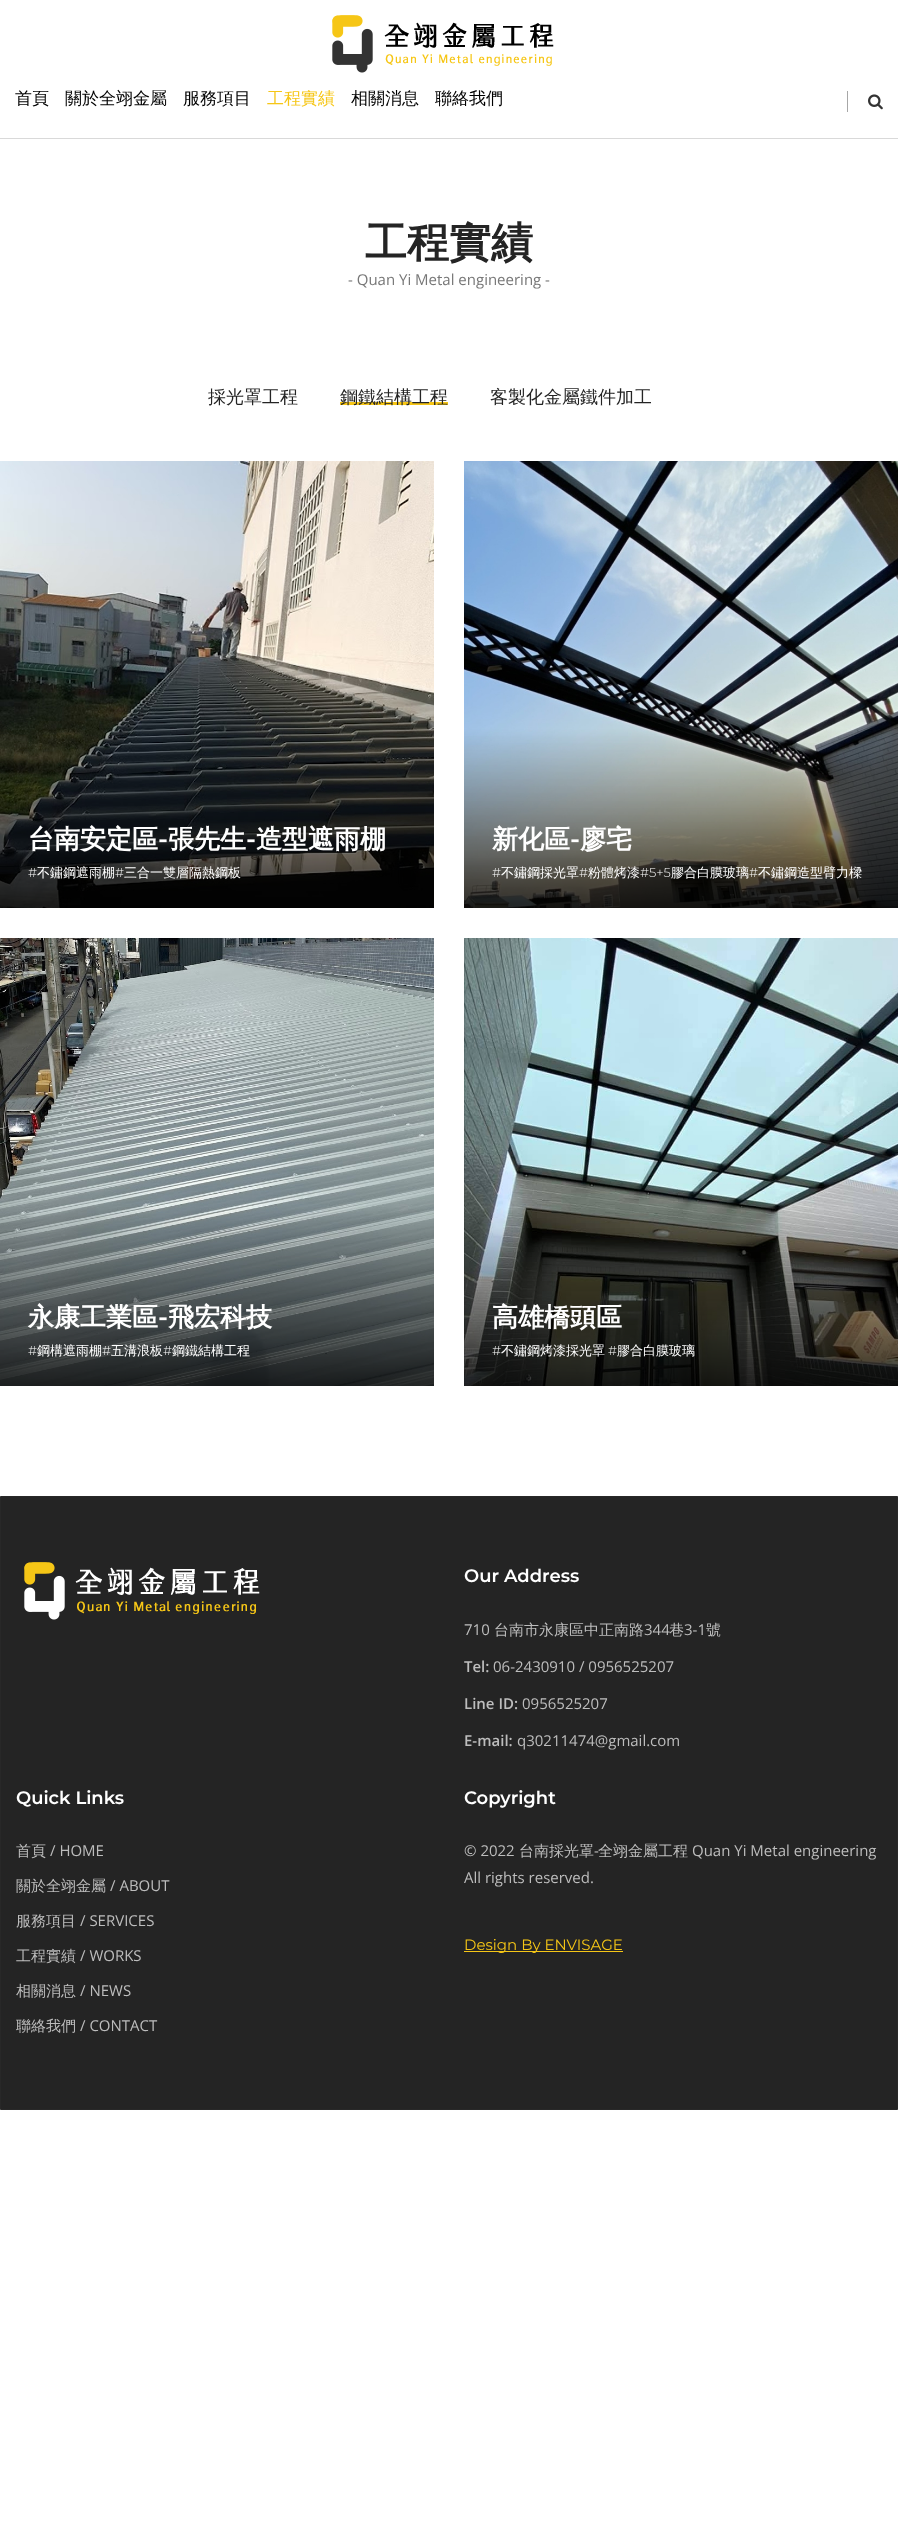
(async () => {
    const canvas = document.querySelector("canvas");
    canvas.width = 898;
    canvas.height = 2546;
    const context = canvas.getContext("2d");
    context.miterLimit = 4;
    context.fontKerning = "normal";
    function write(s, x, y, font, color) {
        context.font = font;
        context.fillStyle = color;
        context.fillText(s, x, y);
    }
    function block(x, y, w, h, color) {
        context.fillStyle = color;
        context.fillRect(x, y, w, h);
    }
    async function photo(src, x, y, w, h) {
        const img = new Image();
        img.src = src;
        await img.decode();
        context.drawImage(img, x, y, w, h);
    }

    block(0, 0, 898, 2546, "rgb(255, 255, 255)");
    block(0, 138, 898, 1, "rgb(217, 217, 217)");
    await photo("media/1.png", 332, 15, 222, 58);
    write("首頁", 15, 104, "500 17px WenQuanYi Zen Hei", "rgb(0, 0, 0)");
    write("關於全翊金屬", 65, 104, "500 17px WenQuanYi Zen Hei", "rgb(0, 0, 0)");
    write("服務項目", 183, 104, "500 17px WenQuanYi Zen Hei", "rgb(0, 0, 0)");
    write("工程實績", 267, 104, "500 17px WenQuanYi Zen Hei", "rgb(246, 198, 22)");
    write("相關消息", 351, 104, "500 17px WenQuanYi Zen Hei", "rgb(0, 0, 0)");
    write("聯絡我們", 435, 104, "500 17px WenQuanYi Zen Hei", "rgb(0, 0, 0)");
    block(847, 91, 1, 21, "rgb(167, 167, 167)");
    await photo("media/2.png", 868, 94, 15, 16);
    write("工程實績", 365, 257, "bold 42px WenQuanYi Zen Hei", "rgb(36, 36, 36)");
    write("- Quan Yi Metal engineering -", 348, 285, "15px Open Sans", "rgb(119, 119, 119)");
    write("採光罩工程", 208, 403, "500 18px WenQuanYi Zen Hei", "rgb(36, 36, 36)");
    block(340, 402, 108, 3, "rgb(246, 198, 22)");
    write("鋼鐵結構工程", 340, 403, "500 18px WenQuanYi Zen Hei", "rgb(36, 36, 36)");
    write("客製化金屬鐵件加工", 490, 403, "500 18px WenQuanYi Zen Hei", "rgb(36, 36, 36)");
    await photo("media/3.png", 0, 461, 434, 447);
    write("台南安定區", 28, 848, "bold 26px WenQuanYi Zen Hei", "rgb(255, 255, 255)");
    write("-", 158, 848, "600 26px Montserrat", "rgb(255, 255, 255)");
    write("張先生", 168, 848, "bold 26px WenQuanYi Zen Hei", "rgb(255, 255, 255)");
    write("-", 246, 848, "600 26px Montserrat", "rgb(255, 255, 255)");
    write("造型遮雨棚", 256, 848, "bold 26px WenQuanYi Zen Hei", "rgb(255, 255, 255)");
    write("#", 28, 877, "300 13px Montserrat", "rgb(255, 255, 255)");
    write("不鏽鋼遮雨棚", 37, 877, "500 13px WenQuanYi Zen Hei", "rgb(255, 255, 255)");
    write("#", 115, 877, "300 13px Montserrat", "rgb(255, 255, 255)");
    write("三合一雙層隔熱鋼板", 124, 877, "500 13px WenQuanYi Zen Hei", "rgb(255, 255, 255)");
    await photo("media/4.png", 464, 461, 434, 447);
    write("新化區", 492, 848, "bold 26px WenQuanYi Zen Hei", "rgb(255, 255, 255)");
    write("-", 570, 848, "600 26px Montserrat", "rgb(255, 255, 255)");
    write("廖宅", 580, 848, "bold 26px WenQuanYi Zen Hei", "rgb(255, 255, 255)");
    write("#", 492, 877, "300 13px Montserrat", "rgb(255, 255, 255)");
    write("不鏽鋼採光罩", 501, 877, "500 13px WenQuanYi Zen Hei", "rgb(255, 255, 255)");
    write("#", 579, 877, "300 13px Montserrat", "rgb(255, 255, 255)");
    write("粉體烤漆", 588, 877, "500 13px WenQuanYi Zen Hei", "rgb(255, 255, 255)");
    write("#5+5", 640, 877, "300 13px Montserrat", "rgb(255, 255, 255)");
    write("膠合白膜玻璃", 671, 877, "500 13px WenQuanYi Zen Hei", "rgb(255, 255, 255)");
    write("#", 749, 877, "300 13px Montserrat", "rgb(255, 255, 255)");
    write("不鏽鋼造型臂力樑", 758, 877, "500 13px WenQuanYi Zen Hei", "rgb(255, 255, 255)");
    await photo("media/5.png", 0, 938, 434, 448);
    write("永康工業區", 28, 1326, "bold 26px WenQuanYi Zen Hei", "rgb(255, 255, 255)");
    write("-", 158, 1326, "600 26px Montserrat", "rgb(255, 255, 255)");
    write("飛宏科技", 168, 1326, "bold 26px WenQuanYi Zen Hei", "rgb(255, 255, 255)");
    write("#", 28, 1355, "300 13px Montserrat", "rgb(255, 255, 255)");
    write("鋼構遮雨棚", 37, 1355, "500 13px WenQuanYi Zen Hei", "rgb(255, 255, 255)");
    write("#", 102, 1355, "300 13px Montserrat", "rgb(255, 255, 255)");
    write("五溝浪板", 111, 1355, "500 13px WenQuanYi Zen Hei", "rgb(255, 255, 255)");
    write("#", 163, 1355, "300 13px Montserrat", "rgb(255, 255, 255)");
    write("鋼鐵結構工程", 172, 1355, "500 13px WenQuanYi Zen Hei", "rgb(255, 255, 255)");
    await photo("media/6.png", 464, 938, 434, 448);
    write("高雄橋頭區", 492, 1326, "bold 26px WenQuanYi Zen Hei", "rgb(255, 255, 255)");
    write("#", 492, 1355, "300 13px Montserrat", "rgb(255, 255, 255)");
    write("不鏽鋼烤漆採光罩", 501, 1355, "500 13px WenQuanYi Zen Hei", "rgb(255, 255, 255)");
    write("#", 608, 1355, "300 13px Montserrat", "rgb(255, 255, 255)");
    write("膠合白膜玻璃", 617, 1355, "500 13px WenQuanYi Zen Hei", "rgb(255, 255, 255)");
    context.fillStyle = "rgb(36, 36, 36)";
    context.beginPath();
    context.rect(0.5, 1496.5, 897, 613);
    context.fill();
    context.strokeStyle = "rgb(40, 40, 40)";
    context.stroke();
    await photo("media/7.png", 24, 1562, 236, 58);
    write("Our Address", 464, 1582, "600 18px Montserrat", "rgb(255, 255, 255)");
    write("710", 464, 1635, "15px Open Sans", "rgb(189, 189, 189)");
    write("台南市永康區中正南路", 494, 1635, "500 15px WenQuanYi Zen Hei", "rgb(189, 189, 189)");
    write("344", 644, 1635, "15px Open Sans", "rgb(189, 189, 189)");
    write("巷", 669, 1635, "500 15px WenQuanYi Zen Hei", "rgb(189, 189, 189)");
    write("3-1", 684, 1635, "15px Open Sans", "rgb(189, 189, 189)");
    write("號", 706, 1635, "500 15px WenQuanYi Zen Hei", "rgb(189, 189, 189)");
    write("Tel:", 464, 1672, "600 15px Open Sans", "rgb(189, 189, 189)");
    write("06-2430910 / 0956525207", 493, 1672, "15px Open Sans", "rgb(189, 189, 189)");
    write("Line ID:", 464, 1709, "600 15px Open Sans", "rgb(189, 189, 189)");
    write("0956525207", 522, 1709, "15px Open Sans", "rgb(189, 189, 189)");
    write("E-mail:", 464, 1746, "600 15px Open Sans", "rgb(189, 189, 189)");
    write("q30211474@gmail.com", 517, 1746, "15px Open Sans", "rgb(189, 189, 189)");
    write("Quick Links", 16, 1804, "600 18px Montserrat", "rgb(255, 255, 255)");
    write("首頁", 16, 1856, "500 15px WenQuanYi Zen Hei", "rgb(189, 189, 189)");
    write("/ HOME", 50, 1856, "15px Open Sans", "rgb(189, 189, 189)");
    write("關於全翊金屬", 16, 1891, "500 15px WenQuanYi Zen Hei", "rgb(189, 189, 189)");
    write("/ ABOUT", 110, 1891, "15px Open Sans", "rgb(189, 189, 189)");
    write("服務項目", 16, 1926, "500 15px WenQuanYi Zen Hei", "rgb(189, 189, 189)");
    write("/ SERVICES", 80, 1926, "15px Open Sans", "rgb(189, 189, 189)");
    write("工程實績", 16, 1961, "500 15px WenQuanYi Zen Hei", "rgb(189, 189, 189)");
    write("/ WORKS", 80, 1961, "15px Open Sans", "rgb(189, 189, 189)");
    write("相關消息", 16, 1996, "500 15px WenQuanYi Zen Hei", "rgb(189, 189, 189)");
    write("/ NEWS", 80, 1996, "15px Open Sans", "rgb(189, 189, 189)");
    write("聯絡我們", 16, 2031, "500 15px WenQuanYi Zen Hei", "rgb(189, 189, 189)");
    write("/ CONTACT", 80, 2031, "15px Open Sans", "rgb(189, 189, 189)");
    write("Copyright", 464, 1804, "600 18px Montserrat", "rgb(255, 255, 255)");
    write("© 2022", 464, 1856, "15px Open Sans", "rgb(189, 189, 189)");
    write("台南採光罩", 519, 1856, "500 15px WenQuanYi Zen Hei", "rgb(189, 189, 189)");
    write("-", 594, 1856, "15px Open Sans", "rgb(189, 189, 189)");
    write("全翊金屬工程", 598, 1856, "500 15px WenQuanYi Zen Hei", "rgb(189, 189, 189)");
    write("Quan Yi Metal engineering", 692, 1856, "15px Open Sans", "rgb(189, 189, 189)");
    write("All rights reserved.", 464, 1883, "15px Open Sans", "rgb(189, 189, 189)");
    block(464, 1951, 159, 1, "rgb(246, 198, 22)");
    write("Design By ENVISAGE", 464, 1950, "15px Montserrat", "rgb(246, 198, 22)");
})();
